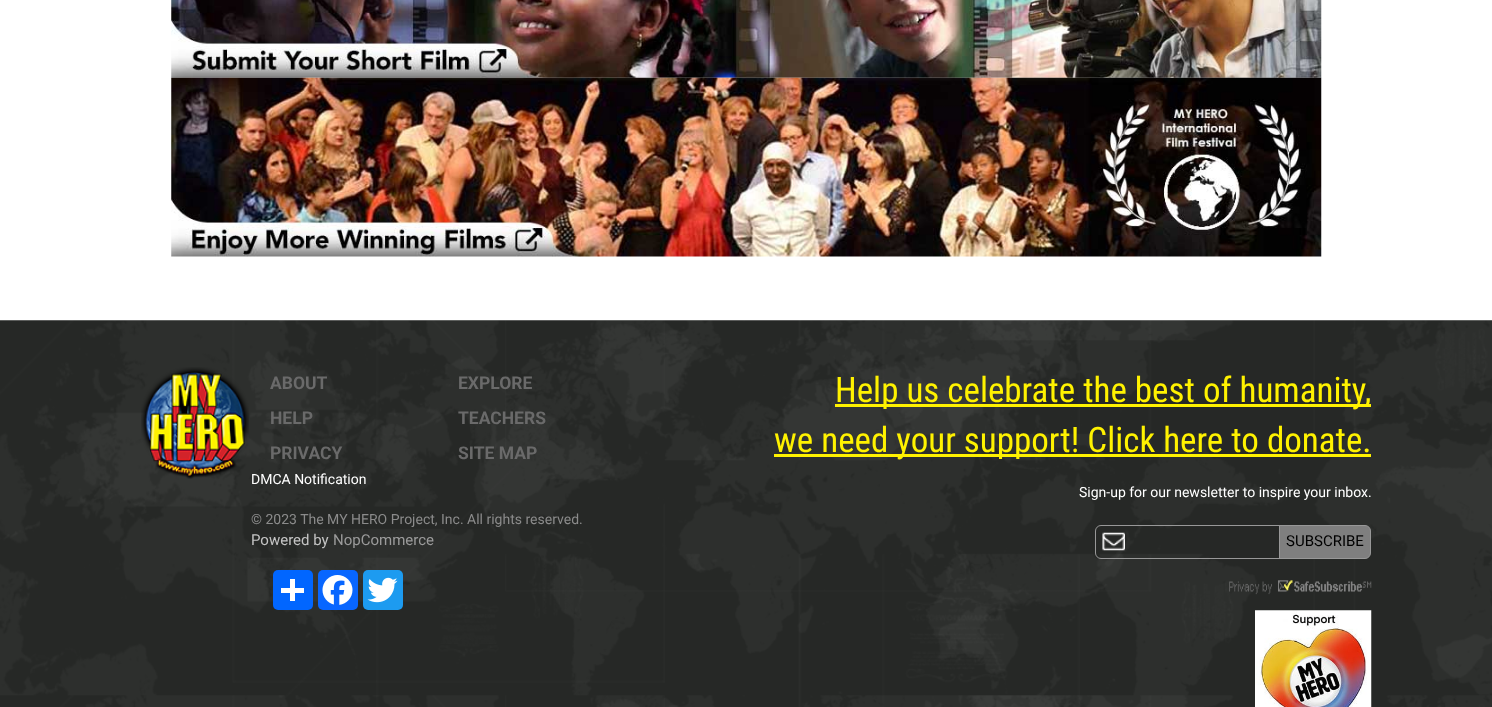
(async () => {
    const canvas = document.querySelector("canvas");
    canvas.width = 1492;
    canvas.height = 707;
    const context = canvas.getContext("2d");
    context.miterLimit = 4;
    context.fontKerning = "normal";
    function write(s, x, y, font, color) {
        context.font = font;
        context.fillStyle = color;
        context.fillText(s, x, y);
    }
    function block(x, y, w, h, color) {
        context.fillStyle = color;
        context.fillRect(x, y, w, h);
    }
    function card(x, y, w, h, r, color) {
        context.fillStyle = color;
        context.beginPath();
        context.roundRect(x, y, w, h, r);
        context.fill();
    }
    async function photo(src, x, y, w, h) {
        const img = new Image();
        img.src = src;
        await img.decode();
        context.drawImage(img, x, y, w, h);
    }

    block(0, 0, 1492, 707, "rgb(255, 255, 255)");
    await photo("media/1.png", 171, 0, 1151, 78);
    await photo("media/2.png", 171, 77, 1151, 180);
    await photo("media/3.png", 0, 320, 1492, 387);
    await photo("media/4.png", 141, 367, 108, 112);
    write("ABOUT", 270, 389, "bold 17.5px Roboto", "rgb(106, 106, 106)");
    write("HELP", 270, 424, "bold 17.5px Roboto", "rgb(106, 106, 106)");
    write("PRIVACY", 270, 459, "bold 17.5px Roboto", "rgb(106, 106, 106)");
    write("EXPLORE", 458, 389, "bold 17.5px Roboto", "rgb(106, 106, 106)");
    write("TEACHERS", 458, 424, "bold 17.5px Roboto", "rgb(106, 106, 106)");
    write("SITE MAP", 458, 459, "bold 17.5px Roboto", "rgb(106, 106, 106)");
    write("DMCA Notification", 251, 484, "14px Roboto", "rgb(255, 255, 255)");
    write("© 2023 The MY HERO Project, Inc. All rights reserved.", 251, 524, "14px Roboto", "rgb(139, 139, 139)");
    write("Powered by", 251, 545, "15px Roboto", "rgb(196, 196, 196)");
    write("NopCommerce", 333, 545, "15px Roboto", "rgb(155, 155, 155)");
    card(273, 570, 40, 40, 5, "rgb(1, 102, 255)");
    block(290, 579, 5, 22, "rgb(255, 255, 255)");
    block(281, 588, 23, 5, "rgb(255, 255, 255)");
    card(318, 570, 40, 40, 5, "rgb(8, 102, 255)");
    await photo("media/5.png", 322, 575, 31, 30);
    card(363, 570, 40, 40, 5, "rgb(29, 155, 240)");
    await photo("media/6.png", 367, 577, 31, 26);
    block(835, 404, 536, 3, "rgb(255, 242, 0)");
    write("Help us celebrate the best of humanity,", 835, 402, "35px Roboto Condensed", "rgb(255, 242, 0)");
    block(774, 454, 597, 3, "rgb(255, 242, 0)");
    write("we need your support! Click here to donate.", 774, 452, "35px Roboto Condensed", "rgb(255, 242, 0)");
    write("Sign-up for our newsletter to inspire your inbox.", 1079, 497, "14px Roboto", "rgb(255, 255, 255)");
    await photo("media/7.png", 1102, 532, 23, 19);
    context.beginPath();
    context.roundRect(1095.5, 525.5, 187, 33, [5.5, 0, 0, 5.5]);
    context.strokeStyle = "rgb(152, 152, 152)";
    context.stroke();
    context.fillStyle = "rgb(127, 127, 127)";
    context.beginPath();
    context.roundRect(1279.5, 525.5, 91, 33, [0, 5.5, 5.5, 0]);
    context.fill();
    context.stroke();
    write("SUBSCRIBE", 1286, 546, "15px Roboto", "rgb(0, 0, 0)");
    await photo("media/8.png", 1229, 580, 143, 15);
    await photo("media/9.png", 1255, 610, 117, 97);
})();
